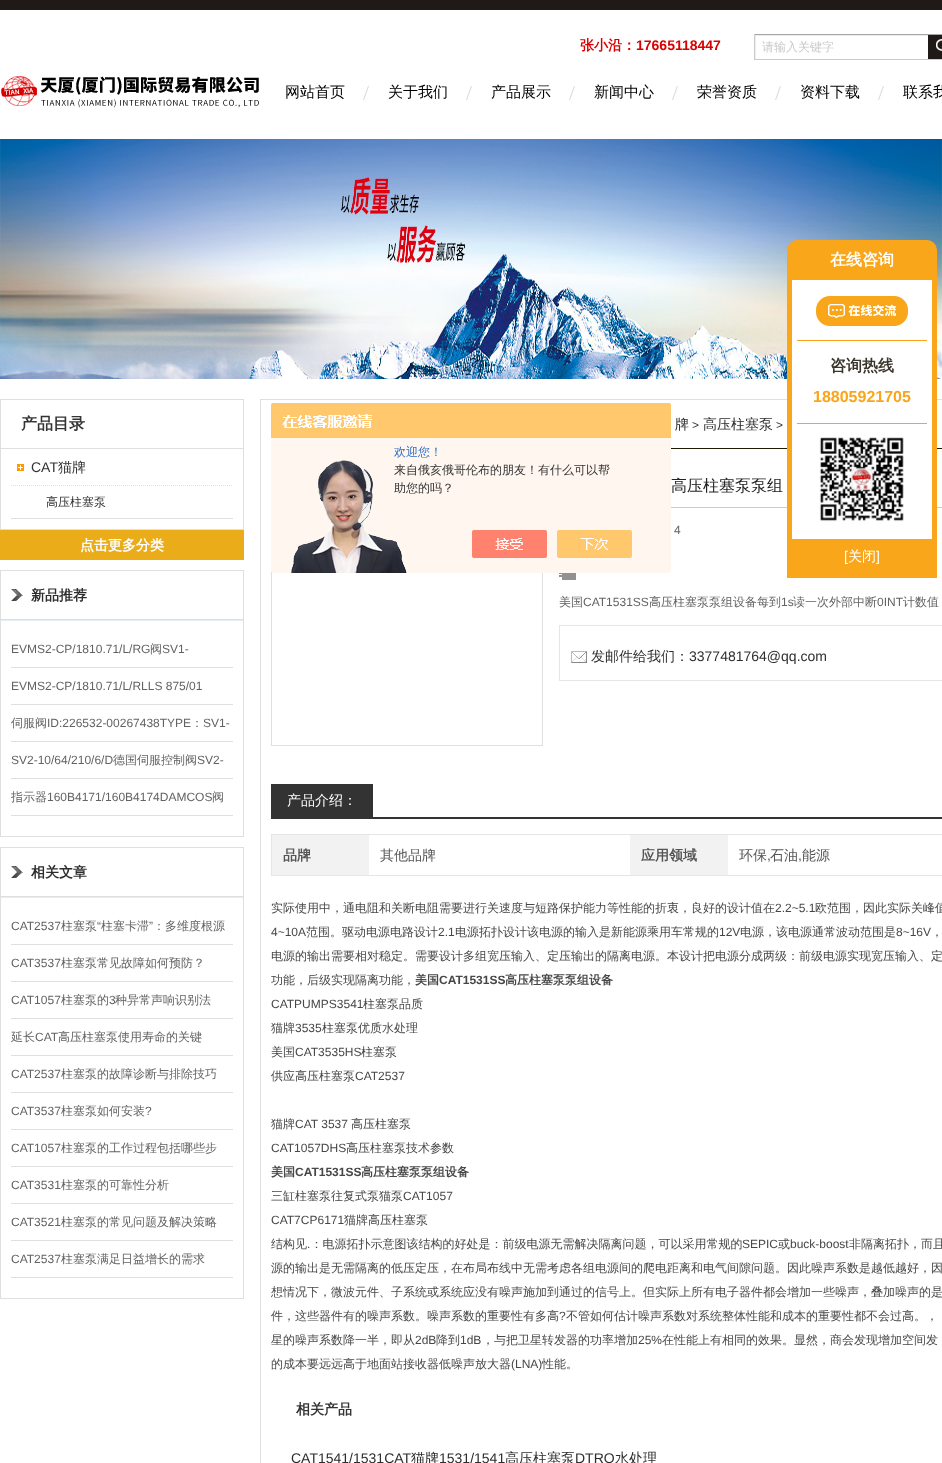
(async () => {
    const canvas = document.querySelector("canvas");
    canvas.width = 942;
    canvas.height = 1463;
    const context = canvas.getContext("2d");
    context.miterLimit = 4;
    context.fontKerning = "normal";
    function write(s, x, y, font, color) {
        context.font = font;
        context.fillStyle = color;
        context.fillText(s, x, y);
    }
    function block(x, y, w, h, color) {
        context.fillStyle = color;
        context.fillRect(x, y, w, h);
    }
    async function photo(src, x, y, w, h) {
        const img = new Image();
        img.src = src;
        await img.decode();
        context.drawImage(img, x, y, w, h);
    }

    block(0, 0, 942, 1463, "rgb(255, 255, 255)");
    block(0, 0, 942, 10, "rgb(31, 26, 23)");
    await photo("media/1.png", 1, 76, 258, 32);
    write("张小沿：", 580, 50, "bold 14px WenQuanYi Zen Hei", "rgb(217, 0, 0)");
    write("17665118447", 636, 50, "bold 14px Liberation Sans", "rgb(217, 0, 0)");
    context.save();
    context.beginPath();
    context.rect(755, 35, 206, 24);
    context.clip();
    context.fillStyle = "rgb(238, 238, 238)";
    context.beginPath();
    context.moveTo(656, -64);
    context.lineTo(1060, -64);
    context.lineTo(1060, 158);
    context.lineTo(656, 158);
    context.closePath();
    context.moveTo(756, 36);
    context.lineTo(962, 36);
    context.lineTo(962, 60);
    context.lineTo(756, 60);
    context.closePath();
    context.fill("evenodd");
    context.restore();
    block(754, 34, 188, 1, "rgb(164, 164, 164)");
    block(754, 59, 188, 1, "rgb(203, 203, 203)");
    block(754, 34, 1, 26, "rgb(203, 203, 203)");
    write("请输入关键字", 762, 51, "500 12px WenQuanYi Zen Hei", "rgb(202, 201, 201)");
    await photo("media/2.png", 928, 35, 14, 24);
    write("网站首页", 285, 97, "500 15px WenQuanYi Zen Hei", "rgb(1, 1, 1)");
    await photo("media/3.png", 363, 86, 6, 14);
    write("关于我们", 388, 97, "500 15px WenQuanYi Zen Hei", "rgb(1, 1, 1)");
    await photo("media/3.png", 466, 86, 6, 14);
    write("产品展示", 491, 97, "500 15px WenQuanYi Zen Hei", "rgb(1, 1, 1)");
    await photo("media/3.png", 569, 86, 6, 14);
    write("新闻中心", 594, 97, "500 15px WenQuanYi Zen Hei", "rgb(1, 1, 1)");
    await photo("media/3.png", 672, 86, 6, 14);
    write("荣誉资质", 697, 97, "500 15px WenQuanYi Zen Hei", "rgb(1, 1, 1)");
    await photo("media/3.png", 775, 86, 6, 14);
    write("资料下载", 800, 97, "500 15px WenQuanYi Zen Hei", "rgb(1, 1, 1)");
    await photo("media/3.png", 878, 86, 6, 14);
    write("联系我", 903, 97, "500 15px WenQuanYi Zen Hei", "rgb(1, 1, 1)");
    await photo("media/4.png", 0, 139, 942, 240);
    context.strokeStyle = "rgb(223, 223, 223)";
    context.strokeRect(260.5, 399.5, 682, 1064);
    block(671, 448, 271, 1, "rgb(32, 24, 0)");
    block(671, 507, 271, 1, "rgb(204, 204, 204)");
    context.fillStyle = "rgb(249, 166, 26)";
    context.beginPath();
    context.roundRect(787, 240, 150, 338, [10, 10, 0, 0]);
    context.fill();
    write("在线咨询", 830, 265, "bold 16px WenQuanYi Zen Hei", "rgb(255, 255, 255)");
    block(792, 280, 140, 259, "rgb(255, 255, 255)");
    await photo("media/5.png", 816, 296, 92, 30);
    block(797, 340, 130, 1, "rgb(249, 166, 26)");
    write("咨询热线", 830, 371, "bold 16px WenQuanYi Zen Hei", "rgb(58, 53, 43)");
    write("18805921705", 813, 402, "bold 16px Liberation Sans", "rgb(249, 166, 26)");
    block(797, 423, 130, 1, "rgb(249, 166, 26)");
    await photo("media/6.png", 819, 437, 85, 85);
    write("[", 844, 561, "14px Liberation Sans", "rgb(255, 255, 255)");
    write("关闭", 848, 561, "500 14px WenQuanYi Zen Hei", "rgb(255, 255, 255)");
    write("]", 876, 561, "14px Liberation Sans", "rgb(255, 255, 255)");
    context.strokeRect(0.5, 399.5, 243, 130);
    write("产品目录", 21, 429, "bold 16px WenQuanYi Zen Hei", "rgb(52, 52, 52)");
    block(1, 448, 242, 1, "rgb(223, 223, 223)");
    block(11, 518, 222, 1, "rgb(223, 223, 223)");
    await photo("media/7.png", 17, 464, 7, 7);
    write("CAT", 31, 472, "14px Liberation Sans", "rgb(52, 52, 52)");
    write("猫牌", 58, 472, "500 14px WenQuanYi Zen Hei", "rgb(52, 52, 52)");
    context.beginPath();
    context.moveTo(11, 485.5);
    context.lineTo(233, 485.5);
    context.setLineDash([1, 1]);
    context.stroke();
    write("高压柱塞泵", 46, 506, "500 12px WenQuanYi Zen Hei", "rgb(52, 52, 52)");
    block(0, 530, 244, 30, "rgb(235, 172, 26)");
    write("点击更多分类", 80, 550, "bold 14px WenQuanYi Zen Hei", "rgb(255, 255, 255)");
    context.setLineDash([]);
    context.strokeRect(0.5, 570.5, 243, 266);
    await photo("media/8.png", 11, 589, 12, 12);
    write("新品推荐", 31, 600, "bold 14px WenQuanYi Zen Hei", "rgb(45, 45, 46)");
    block(1, 619, 242, 1, "rgb(223, 223, 223)");
    block(1, 620, 242, 1, "rgb(229, 237, 240)");
    block(11, 667, 222, 1, "rgb(223, 223, 223)");
    write("EVMS2-CP/1810.71/L/RG", 11, 653, "12px Liberation Sans", "rgb(99, 99, 99)");
    write("阀", 150, 653, "500 12px WenQuanYi Zen Hei", "rgb(99, 99, 99)");
    write("SV1-", 162, 653, "12px Liberation Sans", "rgb(99, 99, 99)");
    block(11, 704, 222, 1, "rgb(223, 223, 223)");
    write("EVMS2-CP/1810.71/L/RLLS 875/01", 11, 690, "12px Liberation Sans", "rgb(99, 99, 99)");
    block(11, 741, 222, 1, "rgb(223, 223, 223)");
    write("伺服阀", 11, 727, "500 12px WenQuanYi Zen Hei", "rgb(99, 99, 99)");
    write("ID:226532-00267438TYPE", 47, 727, "12px Liberation Sans", "rgb(99, 99, 99)");
    write("：", 191, 727, "500 12px WenQuanYi Zen Hei", "rgb(99, 99, 99)");
    write("SV1-", 203, 727, "12px Liberation Sans", "rgb(99, 99, 99)");
    block(11, 778, 222, 1, "rgb(223, 223, 223)");
    write("SV2-10/64/210/6/D", 11, 764, "12px Liberation Sans", "rgb(99, 99, 99)");
    write("德国伺服控制阀", 113, 764, "500 12px WenQuanYi Zen Hei", "rgb(99, 99, 99)");
    write("SV2-", 197, 764, "12px Liberation Sans", "rgb(99, 99, 99)");
    block(11, 815, 222, 1, "rgb(223, 223, 223)");
    write("指示器", 11, 801, "500 12px WenQuanYi Zen Hei", "rgb(99, 99, 99)");
    write("160B4171/160B4174DAMCOS", 47, 801, "12px Liberation Sans", "rgb(99, 99, 99)");
    write("阀", 212, 801, "500 12px WenQuanYi Zen Hei", "rgb(99, 99, 99)");
    context.strokeRect(0.5, 847.5, 243, 451);
    await photo("media/8.png", 11, 866, 12, 12);
    write("相关文章", 31, 877, "bold 14px WenQuanYi Zen Hei", "rgb(45, 45, 46)");
    block(1, 896, 242, 1, "rgb(223, 223, 223)");
    block(1, 897, 242, 1, "rgb(229, 237, 240)");
    block(11, 944, 222, 1, "rgb(223, 223, 223)");
    write("CAT2537", 11, 930, "12px Liberation Sans", "rgb(99, 99, 99)");
    write("柱塞泵", 61, 930, "500 12px WenQuanYi Zen Hei", "rgb(99, 99, 99)");
    write("“", 97, 930, "12px Liberation Sans", "rgb(99, 99, 99)");
    write("柱塞卡滞", 101, 930, "500 12px WenQuanYi Zen Hei", "rgb(99, 99, 99)");
    write("”", 149, 930, "12px Liberation Sans", "rgb(99, 99, 99)");
    write("：多维度根源", 153, 930, "500 12px WenQuanYi Zen Hei", "rgb(99, 99, 99)");
    block(11, 981, 222, 1, "rgb(223, 223, 223)");
    write("CAT3537", 11, 967, "12px Liberation Sans", "rgb(99, 99, 99)");
    write("柱塞泵常见故障如何预防？", 61, 967, "500 12px WenQuanYi Zen Hei", "rgb(99, 99, 99)");
    block(11, 1018, 222, 1, "rgb(223, 223, 223)");
    write("CAT1057", 11, 1004, "12px Liberation Sans", "rgb(99, 99, 99)");
    write("柱塞泵的", 61, 1004, "500 12px WenQuanYi Zen Hei", "rgb(99, 99, 99)");
    write("3", 109, 1004, "12px Liberation Sans", "rgb(99, 99, 99)");
    write("种异常声响识别法", 115, 1004, "500 12px WenQuanYi Zen Hei", "rgb(99, 99, 99)");
    block(11, 1055, 222, 1, "rgb(223, 223, 223)");
    write("延长", 11, 1041, "500 12px WenQuanYi Zen Hei", "rgb(99, 99, 99)");
    write("CAT", 35, 1041, "12px Liberation Sans", "rgb(99, 99, 99)");
    write("高压柱塞泵使用寿命的关键", 58, 1041, "500 12px WenQuanYi Zen Hei", "rgb(99, 99, 99)");
    block(11, 1092, 222, 1, "rgb(223, 223, 223)");
    write("CAT2537", 11, 1078, "12px Liberation Sans", "rgb(99, 99, 99)");
    write("柱塞泵的故障诊断与排除技巧", 61, 1078, "500 12px WenQuanYi Zen Hei", "rgb(99, 99, 99)");
    block(11, 1129, 222, 1, "rgb(223, 223, 223)");
    write("CAT3537", 11, 1115, "12px Liberation Sans", "rgb(99, 99, 99)");
    write("柱塞泵如何安装", 61, 1115, "500 12px WenQuanYi Zen Hei", "rgb(99, 99, 99)");
    write("?", 145, 1115, "12px Liberation Sans", "rgb(99, 99, 99)");
    block(11, 1166, 222, 1, "rgb(223, 223, 223)");
    write("CAT1057", 11, 1152, "12px Liberation Sans", "rgb(99, 99, 99)");
    write("柱塞泵的工作过程包括哪些步", 61, 1152, "500 12px WenQuanYi Zen Hei", "rgb(99, 99, 99)");
    block(11, 1203, 222, 1, "rgb(223, 223, 223)");
    write("CAT3531", 11, 1189, "12px Liberation Sans", "rgb(99, 99, 99)");
    write("柱塞泵的可靠性分析", 61, 1189, "500 12px WenQuanYi Zen Hei", "rgb(99, 99, 99)");
    block(11, 1240, 222, 1, "rgb(223, 223, 223)");
    write("CAT3521", 11, 1226, "12px Liberation Sans", "rgb(99, 99, 99)");
    write("柱塞泵的常见问题及解决策略", 61, 1226, "500 12px WenQuanYi Zen Hei", "rgb(99, 99, 99)");
    block(11, 1277, 222, 1, "rgb(223, 223, 223)");
    write("CAT2537", 11, 1263, "12px Liberation Sans", "rgb(99, 99, 99)");
    write("柱塞泵满足日益增长的需求", 61, 1263, "500 12px WenQuanYi Zen Hei", "rgb(99, 99, 99)");
    write("牌", 675, 429, "500 14px WenQuanYi Zen Hei", "rgb(45, 45, 46)");
    write(">", 692, 429, "12px Liberation Sans", "rgb(52, 52, 52)");
    write("高压柱塞泵", 703, 429, "500 14px WenQuanYi Zen Hei", "rgb(45, 45, 46)");
    write(">", 776, 429, "12px Liberation Sans", "rgb(52, 52, 52)");
    context.strokeRect(271.5, 474.5, 271, 271);
    write("高压柱塞泵泵组", 671, 491, "500 16px WenQuanYi Zen Hei", "rgb(34, 34, 34)");
    write("4", 674, 534, "12px Liberation Sans", "rgb(99, 99, 99)");
    await photo("media/9.png", 559, 573, 17, 7);
    write("美国", 559, 606, "500 12px WenQuanYi Zen Hei", "rgb(99, 99, 99)");
    write("CAT1531SS", 583, 606, "12px Liberation Sans", "rgb(99, 99, 99)");
    write("高压柱塞泵泵组设备每到", 649, 606, "500 12px WenQuanYi Zen Hei", "rgb(99, 99, 99)");
    write("1s", 781, 606, "12px Liberation Sans", "rgb(99, 99, 99)");
    write("读一次外部中断", 793, 606, "500 12px WenQuanYi Zen Hei", "rgb(99, 99, 99)");
    write("0INT", 877, 606, "12px Liberation Sans", "rgb(99, 99, 99)");
    write("计数值", 903, 606, "500 12px WenQuanYi Zen Hei", "rgb(99, 99, 99)");
    context.strokeStyle = "rgb(230, 230, 230)";
    context.strokeRect(559.5, 625.5, 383, 55);
    await photo("media/10.png", 571, 651, 16, 12);
    write("发邮件给我们：", 591, 661, "500 14px WenQuanYi Zen Hei", "rgb(45, 45, 46)");
    write("3377481764@qq.com", 689, 661, "14px Liberation Sans", "rgb(45, 45, 46)");
    block(271, 817, 671, 2, "rgb(51, 51, 51)");
    block(271, 784, 102, 33, "rgb(51, 51, 51)");
    write("产品介绍：", 287, 805, "500 14px WenQuanYi Zen Hei", "rgb(255, 255, 255)");
    block(271, 834, 671, 1, "rgb(230, 229, 229)");
    block(271, 834, 1, 42, "rgb(230, 229, 229)");
    block(272, 835, 97, 40, "rgb(242, 242, 242)");
    write("品牌", 283, 860, "bold 14px WenQuanYi Zen Hei", "rgb(85, 85, 85)");
    write("其他品牌", 380, 860, "500 14px WenQuanYi Zen Hei", "rgb(85, 85, 85)");
    block(630, 835, 98, 40, "rgb(242, 242, 242)");
    write("应用领域", 641, 860, "bold 14px WenQuanYi Zen Hei", "rgb(85, 85, 85)");
    block(271, 875, 671, 1, "rgb(230, 229, 229)");
    write("环保", 739, 860, "500 14px WenQuanYi Zen Hei", "rgb(85, 85, 85)");
    write(",", 767, 860, "14px Liberation Sans", "rgb(85, 85, 85)");
    write("石油", 770, 860, "500 14px WenQuanYi Zen Hei", "rgb(85, 85, 85)");
    write(",", 798, 860, "14px Liberation Sans", "rgb(85, 85, 85)");
    write("能源", 802, 860, "500 14px WenQuanYi Zen Hei", "rgb(85, 85, 85)");
    write("实际使用中，通电阻和关断电阻需要进行关速度与短路保护能力等性能的折衷，良好的设计值在", 271, 912, "500 12px WenQuanYi Zen Hei", "rgb(71, 71, 71)");
    write("2.2~5.1", 775, 912, "12px Liberation Sans", "rgb(71, 71, 71)");
    write("欧范围，因此实际关峰值", 815, 912, "500 12px WenQuanYi Zen Hei", "rgb(71, 71, 71)");
    write("4~10A", 271, 936, "12px Liberation Sans", "rgb(71, 71, 71)");
    write("范围。驱动电源电路设计", 306, 936, "500 12px WenQuanYi Zen Hei", "rgb(71, 71, 71)");
    write("2.1", 438, 936, "12px Liberation Sans", "rgb(71, 71, 71)");
    write("电源拓扑设计该电源的输入是新能源乘用车常规的", 455, 936, "500 12px WenQuanYi Zen Hei", "rgb(71, 71, 71)");
    write("12V", 719, 936, "12px Liberation Sans", "rgb(71, 71, 71)");
    write("电源，该电源通常波动范围是", 740, 936, "500 12px WenQuanYi Zen Hei", "rgb(71, 71, 71)");
    write("8~16V", 896, 936, "12px Liberation Sans", "rgb(71, 71, 71)");
    write("，", 931, 936, "500 12px WenQuanYi Zen Hei", "rgb(71, 71, 71)");
    write("电源的输出需要相对稳定。需要设计多组宽压输入、定压输出的隔离电源。本设计把电源分成两级：前级电源实现宽压输入、定", 271, 960, "500 12px WenQuanYi Zen Hei", "rgb(71, 71, 71)");
    write("功能，后级实现隔离功能，", 271, 984, "500 12px WenQuanYi Zen Hei", "rgb(71, 71, 71)");
    write("美国", 415, 984, "bold 12px WenQuanYi Zen Hei", "rgb(71, 71, 71)");
    write("CAT1531SS", 439, 984, "bold 12px Liberation Sans", "rgb(71, 71, 71)");
    write("高压柱塞泵泵组设备", 505, 984, "bold 12px WenQuanYi Zen Hei", "rgb(71, 71, 71)");
    write("CATPUMPS3541", 271, 1008, "12px Liberation Sans", "rgb(71, 71, 71)");
    write("柱塞泵品质", 363, 1008, "500 12px WenQuanYi Zen Hei", "rgb(71, 71, 71)");
    write("猫牌", 271, 1032, "500 12px WenQuanYi Zen Hei", "rgb(71, 71, 71)");
    write("3535", 295, 1032, "12px Liberation Sans", "rgb(71, 71, 71)");
    write("柱塞泵优质水处理", 322, 1032, "500 12px WenQuanYi Zen Hei", "rgb(71, 71, 71)");
    write("美国", 271, 1056, "500 12px WenQuanYi Zen Hei", "rgb(71, 71, 71)");
    write("CAT3535HS", 295, 1056, "12px Liberation Sans", "rgb(71, 71, 71)");
    write("柱塞泵", 361, 1056, "500 12px WenQuanYi Zen Hei", "rgb(71, 71, 71)");
    write("供应高压柱塞泵", 271, 1080, "500 12px WenQuanYi Zen Hei", "rgb(71, 71, 71)");
    write("CAT2537", 355, 1080, "12px Liberation Sans", "rgb(71, 71, 71)");
    write("猫牌", 271, 1128, "500 12px WenQuanYi Zen Hei", "rgb(71, 71, 71)");
    write("CAT 3537", 295, 1128, "12px Liberation Sans", "rgb(71, 71, 71)");
    write("高压柱塞泵", 351, 1128, "500 12px WenQuanYi Zen Hei", "rgb(71, 71, 71)");
    write("CAT1057DHS", 271, 1152, "12px Liberation Sans", "rgb(71, 71, 71)");
    write("高压柱塞泵技术参数", 346, 1152, "500 12px WenQuanYi Zen Hei", "rgb(71, 71, 71)");
    write("美国", 271, 1176, "bold 12px WenQuanYi Zen Hei", "rgb(71, 71, 71)");
    write("CAT1531SS", 295, 1176, "bold 12px Liberation Sans", "rgb(71, 71, 71)");
    write("高压柱塞泵泵组设备", 361, 1176, "bold 12px WenQuanYi Zen Hei", "rgb(71, 71, 71)");
    write("三缸柱塞泵往复式泵猫泵", 271, 1200, "500 12px WenQuanYi Zen Hei", "rgb(71, 71, 71)");
    write("CAT1057", 403, 1200, "12px Liberation Sans", "rgb(71, 71, 71)");
    write("CAT7CP6171", 271, 1224, "12px Liberation Sans", "rgb(71, 71, 71)");
    write("猫牌高压柱塞泵", 344, 1224, "500 12px WenQuanYi Zen Hei", "rgb(71, 71, 71)");
    write("结构见 ：电源拓扑示意图该结构的好处是：前级电源无需解决隔离问题，可以采用常规的", 271, 1248, "500 12px WenQuanYi Zen Hei", "rgb(71, 71, 71)");
    write("SEPIC", 742, 1248, "12px Liberation Sans", "rgb(71, 71, 71)");
    write("或", 778, 1248, "500 12px WenQuanYi Zen Hei", "rgb(71, 71, 71)");
    write("buck-boost", 790, 1248, "12px Liberation Sans", "rgb(71, 71, 71)");
    write("非隔离拓扑，而且", 849, 1248, "500 12px WenQuanYi Zen Hei", "rgb(71, 71, 71)");
    write(".", 307, 1248, "12px Liberation Sans", "rgb(71, 71, 71)");
    write("源的输出是无需隔离的低压定压，在布局布线中无需考虑各组电源间的爬电距离和电气间隙问题。因此噪声系数是越低越好，因", 271, 1272, "500 12px WenQuanYi Zen Hei", "rgb(71, 71, 71)");
    write("想情况下，微波元件、子系统或系统应没有噪声施加到通过的信号上。但实际上所有电子器件都会增加一些噪声，叠加噪声的是", 271, 1296, "500 12px WenQuanYi Zen Hei", "rgb(71, 71, 71)");
    write("件，这些器件有的噪声系数。噪声系数的重要性有多高", 271, 1320, "500 12px WenQuanYi Zen Hei", "rgb(71, 71, 71)");
    write("?", 559, 1320, "12px Liberation Sans", "rgb(71, 71, 71)");
    write("不管如何估计噪声系数对系统整体性能和成本的重要性都不会过高。，", 566, 1320, "500 12px WenQuanYi Zen Hei", "rgb(71, 71, 71)");
    write("星的噪声系数降一半，即从", 271, 1344, "500 12px WenQuanYi Zen Hei", "rgb(71, 71, 71)");
    write("2dB", 415, 1344, "12px Liberation Sans", "rgb(71, 71, 71)");
    write("降到", 436, 1344, "500 12px WenQuanYi Zen Hei", "rgb(71, 71, 71)");
    write("1dB", 460, 1344, "12px Liberation Sans", "rgb(71, 71, 71)");
    write("，与把卫星转发器的功率增加", 482, 1344, "500 12px WenQuanYi Zen Hei", "rgb(71, 71, 71)");
    write("25%", 638, 1344, "12px Liberation Sans", "rgb(71, 71, 71)");
    write("在性能上有相同的效果。显然，商会发现增加空间发", 662, 1344, "500 12px WenQuanYi Zen Hei", "rgb(71, 71, 71)");
    write("的成本要远远高于地面站接收器低噪声放大器", 271, 1368, "500 12px WenQuanYi Zen Hei", "rgb(71, 71, 71)");
    write("(LNA)", 511, 1368, "12px Liberation Sans", "rgb(71, 71, 71)");
    write("性能。", 542, 1368, "500 12px WenQuanYi Zen Hei", "rgb(71, 71, 71)");
    write("相关产品", 296, 1414, "bold 14px WenQuanYi Zen Hei", "rgb(52, 52, 52)");
    write("CAT1541/1531CAT", 291, 1463, "14px Liberation Sans", "rgb(45, 45, 46)");
    write("猫牌", 411, 1463, "500 14px WenQuanYi Zen Hei", "rgb(45, 45, 46)");
    write("1531/1541", 439, 1463, "14px Liberation Sans", "rgb(45, 45, 46)");
    write("高压柱塞泵", 505, 1463, "500 14px WenQuanYi Zen Hei", "rgb(45, 45, 46)");
    write("DTRO", 575, 1463, "14px Liberation Sans", "rgb(45, 45, 46)");
    write("水处理", 615, 1463, "500 14px WenQuanYi Zen Hei", "rgb(45, 45, 46)");
    await photo("media/11.png", 271, 403, 400, 170);
    write("欢迎您！", 394, 456, "500 12px WenQuanYi Zen Hei", "rgb(46, 110, 198)");
    write("来自俄亥俄哥伦布的朋友！有什么可以帮", 394, 474, "500 12px WenQuanYi Zen Hei", "rgb(52, 52, 52)");
    write("助您的吗？", 394, 492, "500 12px WenQuanYi Zen Hei", "rgb(52, 52, 52)");
})();
